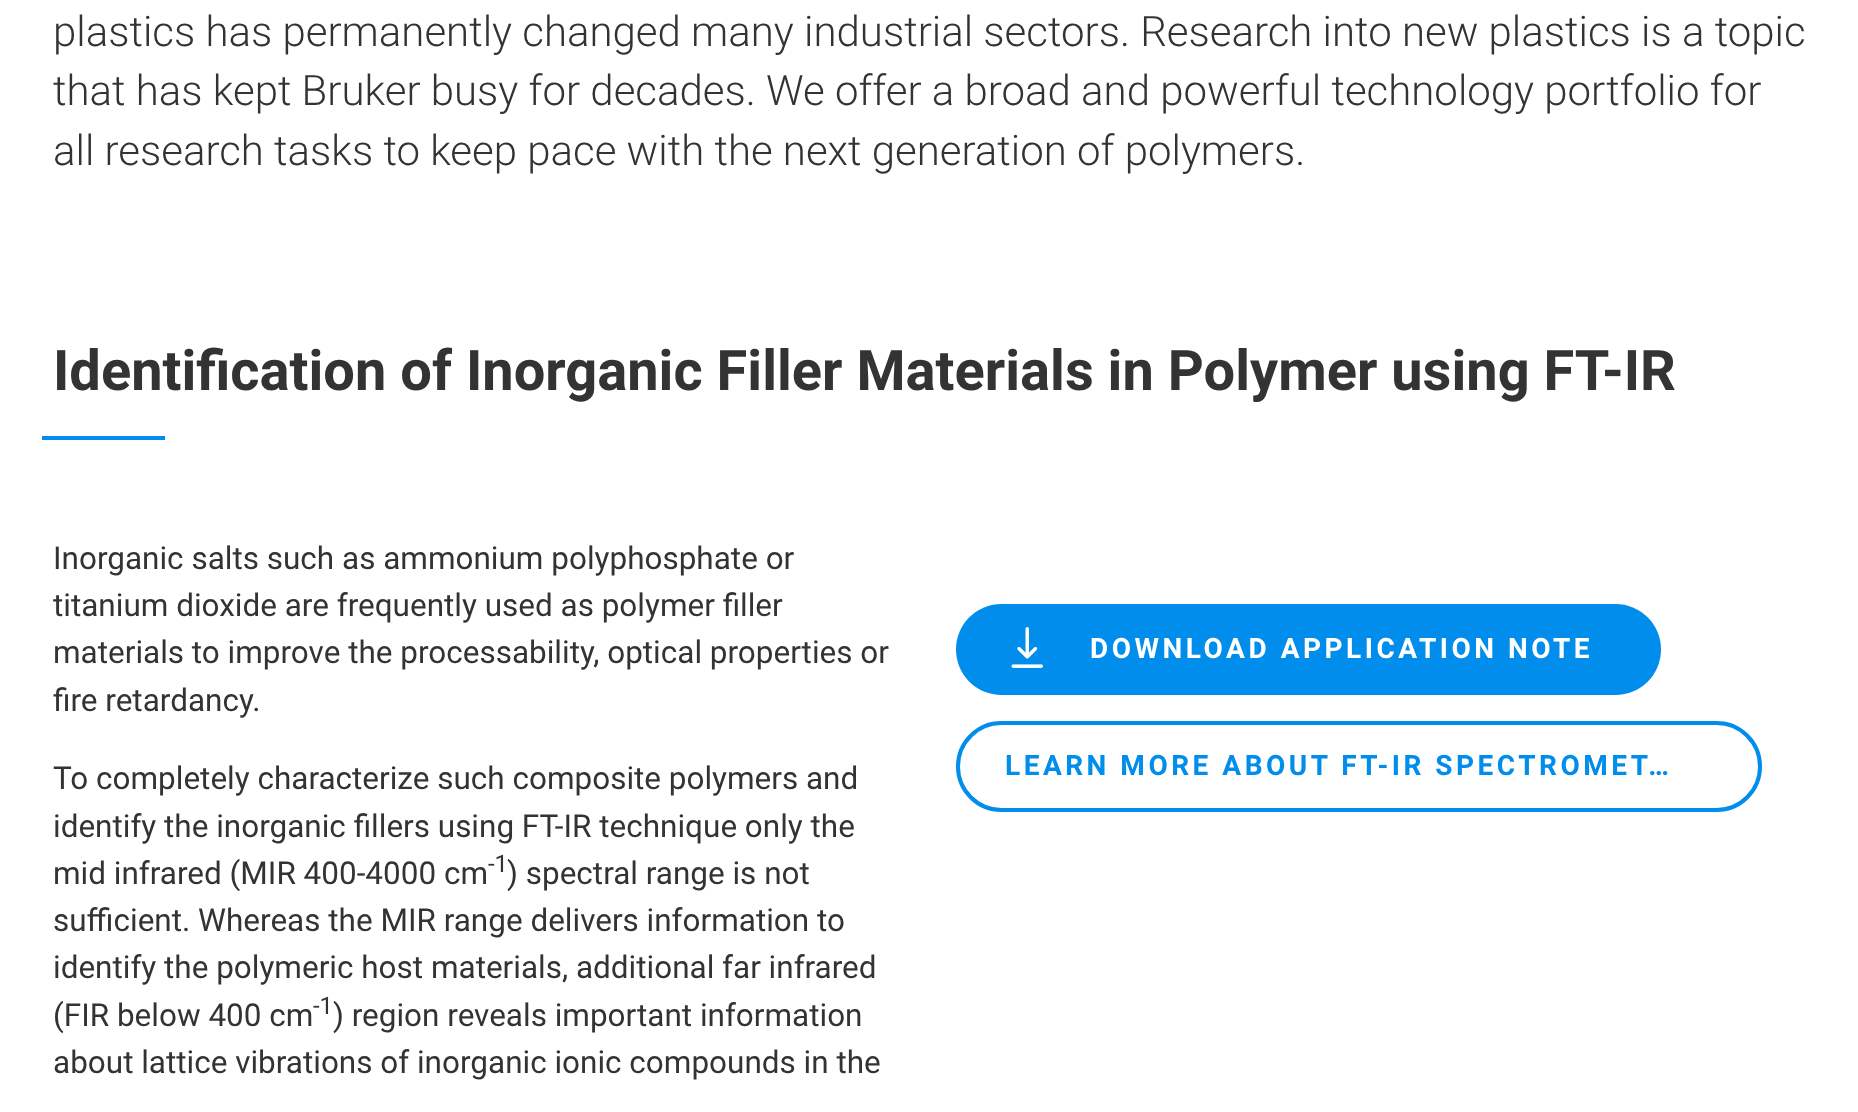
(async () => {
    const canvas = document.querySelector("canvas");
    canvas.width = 1858;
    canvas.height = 1112;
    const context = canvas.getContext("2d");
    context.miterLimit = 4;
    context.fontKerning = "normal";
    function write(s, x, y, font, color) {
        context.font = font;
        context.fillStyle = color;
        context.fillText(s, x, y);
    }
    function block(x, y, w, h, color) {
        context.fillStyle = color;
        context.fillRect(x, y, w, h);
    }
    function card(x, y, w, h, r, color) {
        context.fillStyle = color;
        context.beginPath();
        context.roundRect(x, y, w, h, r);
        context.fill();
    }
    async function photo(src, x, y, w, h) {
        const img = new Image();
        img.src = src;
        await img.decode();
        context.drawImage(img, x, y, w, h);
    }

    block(0, 0, 1858, 1112, "rgb(255, 255, 255)");
    write("plastics has permanently changed many industrial sectors. Research into new plastics is a topic", 53, 46, "300 42px Roboto", "rgb(51, 51, 51)");
    write("that has kept Bruker busy for decades. We offer a broad and powerful technology portfolio for", 53, 105, "300 42px Roboto", "rgb(51, 51, 51)");
    write("all research tasks to keep pace with the next generation of polymers.", 53, 165, "300 42px Roboto", "rgb(51, 51, 51)");
    write("Identification of Inorganic Filler Materials in Polymer using FT-IR", 53, 390, "bold 56px Roboto", "rgb(51, 51, 51)");
    block(42, 436, 123, 4, "rgb(0, 141, 235)");
    write("Inorganic salts such as ammonium polyphosphate or", 53, 569, "31.5px Roboto", "rgb(51, 51, 51)");
    write("titanium dioxide are frequently used as polymer filler", 53, 616, "31.5px Roboto", "rgb(51, 51, 51)");
    write("materials to improve the processability, optical properties or", 53, 663, "31.5px Roboto", "rgb(51, 51, 51)");
    write("fire retardancy.", 53, 711, "31.5px Roboto", "rgb(51, 51, 51)");
    write("To completely characterize such composite polymers and", 53, 789, "31.5px Roboto", "rgb(51, 51, 51)");
    write("identify the inorganic fillers using FT-IR technique only the", 53, 837, "31.5px Roboto", "rgb(51, 51, 51)");
    write("mid infrared (MIR 400-4000 cm", 53, 884, "31.5px Roboto", "rgb(51, 51, 51)");
    write("-1", 488, 872, "24px Roboto", "rgb(51, 51, 51)");
    write(") spectral range is not", 507, 884, "31.5px Roboto", "rgb(51, 51, 51)");
    write("sufficient. Whereas the MIR range delivers information to", 53, 931, "31.5px Roboto", "rgb(51, 51, 51)");
    write("identify the polymeric host materials, additional far infrared", 53, 978, "31.5px Roboto", "rgb(51, 51, 51)");
    write("(FIR below 400 cm", 53, 1026, "31.5px Roboto", "rgb(51, 51, 51)");
    write("-1", 313, 1014, "24px Roboto", "rgb(51, 51, 51)");
    write(") region reveals important information", 333, 1026, "31.5px Roboto", "rgb(51, 51, 51)");
    write("about lattice vibrations of inorganic ionic compounds in the", 53, 1073, "31.5px Roboto", "rgb(51, 51, 51)");
    card(956, 604, 705, 91, 45.5, "rgb(0, 141, 235)");
    await photo("media/1.png", 1011, 627, 32, 41);
    context.letterSpacing = "3.5px";
    write("DOWNLOAD APPLICATION NOTE", 1090, 658, "bold 28px Roboto", "rgb(255, 255, 255)");
    context.beginPath();
    context.roundRect(958, 723, 802, 87, 43.5);
    context.strokeStyle = "rgb(0, 141, 235)";
    context.lineWidth = 4;
    context.stroke();
    write("LEARN MORE ABOUT FT-IR SPECTROMET…", 1005, 775, "bold 28px Roboto", "rgb(0, 141, 235)");
})();
